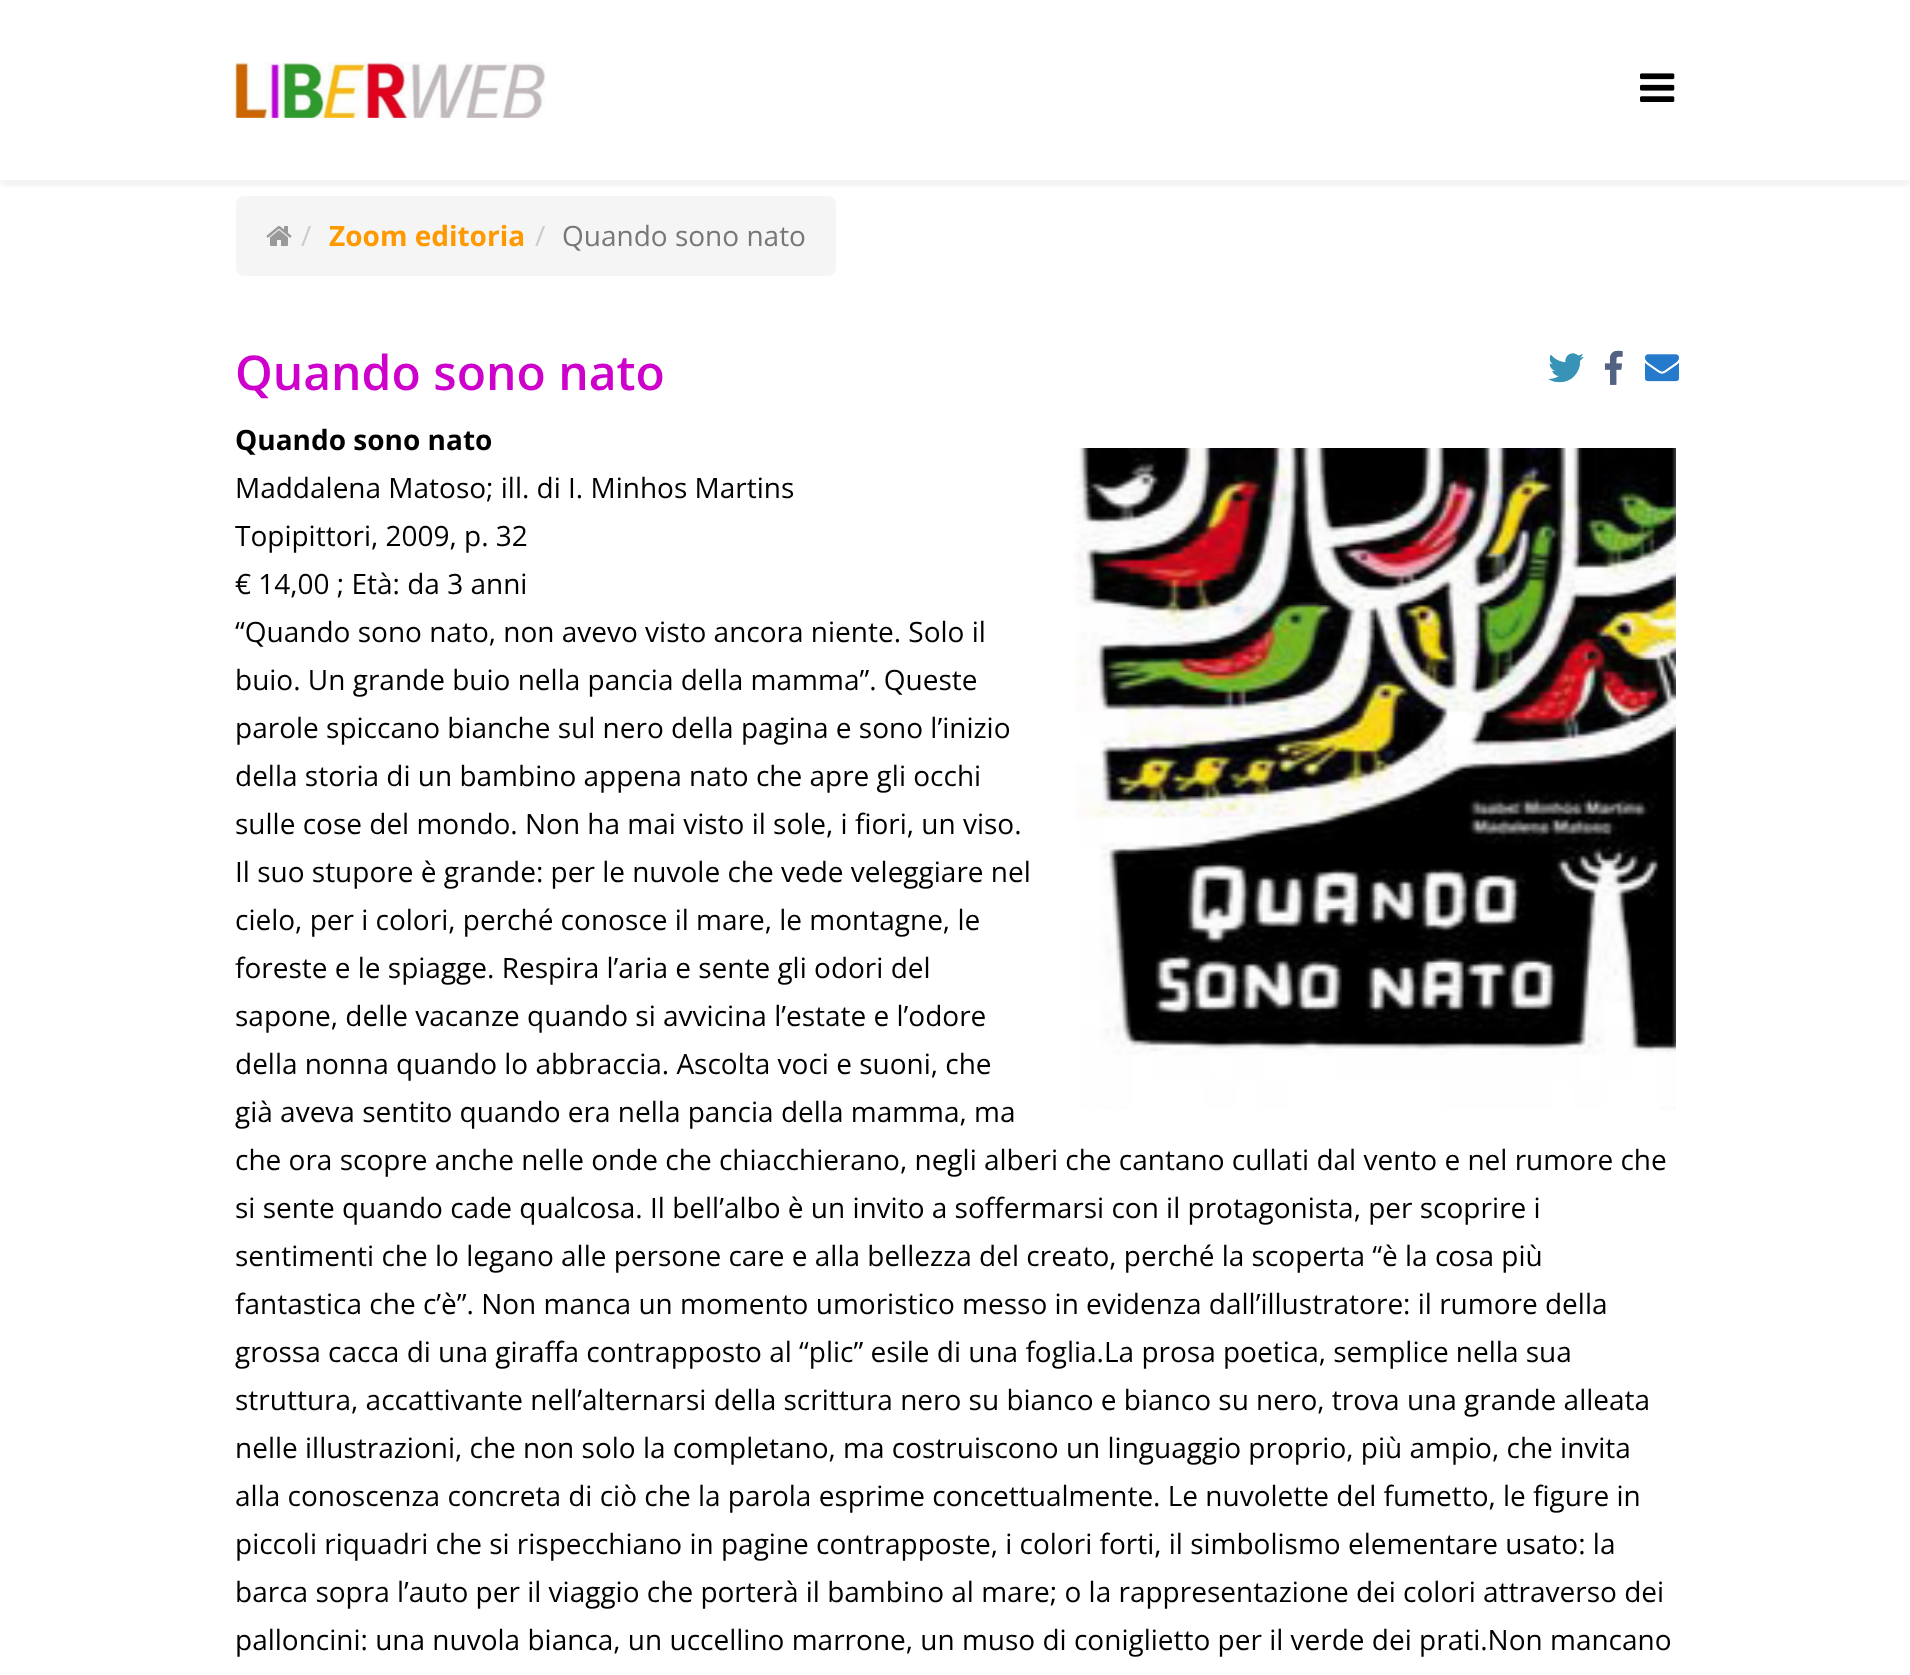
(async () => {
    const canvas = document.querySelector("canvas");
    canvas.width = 1910;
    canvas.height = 1675;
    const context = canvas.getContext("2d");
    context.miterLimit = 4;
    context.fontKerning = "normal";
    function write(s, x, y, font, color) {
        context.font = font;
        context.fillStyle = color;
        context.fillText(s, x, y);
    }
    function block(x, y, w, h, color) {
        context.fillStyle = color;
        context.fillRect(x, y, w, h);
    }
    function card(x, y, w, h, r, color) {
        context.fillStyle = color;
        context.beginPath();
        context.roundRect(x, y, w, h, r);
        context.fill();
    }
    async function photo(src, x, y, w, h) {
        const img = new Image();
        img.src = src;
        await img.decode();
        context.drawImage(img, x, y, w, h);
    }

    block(0, 0, 1910, 1675, "rgb(255, 255, 255)");
    context.save();
    context.beginPath();
    context.rect(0, 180, 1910, 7);
    context.clip();
    context.fillStyle = "rgba(0, 0, 0, 0.05)";
    context.filter = "blur(3px)";
    context.beginPath();
    context.rect(0, 6, 1910, 180);
    context.fill();
    context.filter = "none";
    context.restore();
    await photo("media/1.png", 235, 62, 311, 56);
    await photo("media/2.png", 1640, 73, 35, 29);
    card(236, 196, 600, 80, 8, "rgb(245, 245, 245)");
    await photo("media/3.png", 266, 226, 26, 20);
    write("/", 301, 246, "28px Open Sans", "rgb(204, 204, 204)");
    write("Zoom editoria", 329, 246, "bold 28px Open Sans", "rgb(255, 153, 0)");
    write("/", 535, 246, "28px Open Sans", "rgb(204, 204, 204)");
    write("Quando sono nato", 562, 246, "28px Open Sans", "rgb(119, 119, 119)");
    await photo("media/4.png", 1548, 353, 36, 30);
    await photo("media/5.png", 1604, 350, 19, 35);
    await photo("media/6.png", 1645, 354, 34, 28);
    write("Quando sono nato", 235, 390, "600 48px Open Sans", "rgb(206, 1, 204)");
    block(1549, 353, 34, 29, "rgba(255, 255, 255, 0.05)");
    await photo("media/7.png", 1548, 353, 36, 30);
    await photo("media/8.png", 1604, 350, 19, 35);
    block(1645, 354, 34, 27, "rgba(255, 255, 255, 0.05)");
    await photo("media/9.png", 1645, 354, 34, 28);
    write("Quando sono nato", 235, 450, "bold 28px Open Sans", "rgb(0, 0, 0)");
    write("Maddalena Matoso; ill. di I. Minhos Martins", 235, 498, "28px Open Sans", "rgb(0, 0, 0)");
    write("Topipittori, 2009, p. 32", 235, 546, "28px Open Sans", "rgb(0, 0, 0)");
    write("€ 14,00 ; Età: da 3 anni", 235, 594, "28px Open Sans", "rgb(0, 0, 0)");
    write("“Quando sono nato, non avevo visto ancora niente. Solo il", 235, 642, "28px Open Sans", "rgb(0, 0, 0)");
    write("buio. Un grande buio nella pancia della mamma”. Queste", 235, 690, "28px Open Sans", "rgb(0, 0, 0)");
    write("parole spiccano bianche sul nero della pagina e sono l’inizio", 235, 738, "28px Open Sans", "rgb(0, 0, 0)");
    write("della storia di un bambino appena nato che apre gli occhi", 235, 786, "28px Open Sans", "rgb(0, 0, 0)");
    write("sulle cose del mondo. Non ha mai visto il sole, i fiori, un viso.", 235, 834, "28px Open Sans", "rgb(0, 0, 0)");
    write("Il suo stupore è grande: per le nuvole che vede veleggiare nel", 235, 882, "28px Open Sans", "rgb(0, 0, 0)");
    write("cielo, per i colori, perché conosce il mare, le montagne, le", 235, 930, "28px Open Sans", "rgb(0, 0, 0)");
    write("foreste e le spiagge. Respira l’aria e sente gli odori del", 235, 978, "28px Open Sans", "rgb(0, 0, 0)");
    write("sapone, delle vacanze quando si avvicina l’estate e l’odore", 235, 1026, "28px Open Sans", "rgb(0, 0, 0)");
    write("della nonna quando lo abbraccia. Ascolta voci e suoni, che", 235, 1074, "28px Open Sans", "rgb(0, 0, 0)");
    write("già aveva sentito quando era nella pancia della mamma, ma", 235, 1122, "28px Open Sans", "rgb(0, 0, 0)");
    write("che ora scopre anche nelle onde che chiacchierano, negli alberi che cantano cullati dal vento e nel rumore che", 235, 1170, "28px Open Sans", "rgb(0, 0, 0)");
    write("si sente quando cade qualcosa. Il bell’albo è un invito a soffermarsi con il protagonista, per scoprire i", 235, 1218, "28px Open Sans", "rgb(0, 0, 0)");
    write("sentimenti che lo legano alle persone care e alla bellezza del creato, perché la scoperta “è la cosa più", 235, 1266, "28px Open Sans", "rgb(0, 0, 0)");
    write("fantastica che c’è”. Non manca un momento umoristico messo in evidenza dall’illustratore: il rumore della", 235, 1314, "28px Open Sans", "rgb(0, 0, 0)");
    write("grossa cacca di una giraffa contrapposto al “plic” esile di una foglia.La prosa poetica, semplice nella sua", 235, 1362, "28px Open Sans", "rgb(0, 0, 0)");
    write("struttura, accattivante nell’alternarsi della scrittura nero su bianco e bianco su nero, trova una grande alleata", 235, 1410, "28px Open Sans", "rgb(0, 0, 0)");
    write("nelle illustrazioni, che non solo la completano, ma costruiscono un linguaggio proprio, più ampio, che invita", 235, 1458, "28px Open Sans", "rgb(0, 0, 0)");
    write("alla conoscenza concreta di ciò che la parola esprime concettualmente. Le nuvolette del fumetto, le figure in", 235, 1506, "28px Open Sans", "rgb(0, 0, 0)");
    write("piccoli riquadri che si rispecchiano in pagine contrapposte, i colori forti, il simbolismo elementare usato: la", 235, 1554, "28px Open Sans", "rgb(0, 0, 0)");
    write("barca sopra l’auto per il viaggio che porterà il bambino al mare; o la rappresentazione dei colori attraverso dei", 235, 1602, "28px Open Sans", "rgb(0, 0, 0)");
    write("palloncini: una nuvola bianca, un uccellino marrone, un muso di coniglietto per il verde dei prati.Non mancano", 235, 1650, "28px Open Sans", "rgb(0, 0, 0)");
    await photo("media/10.png", 1074, 448, 602, 662);
})();
